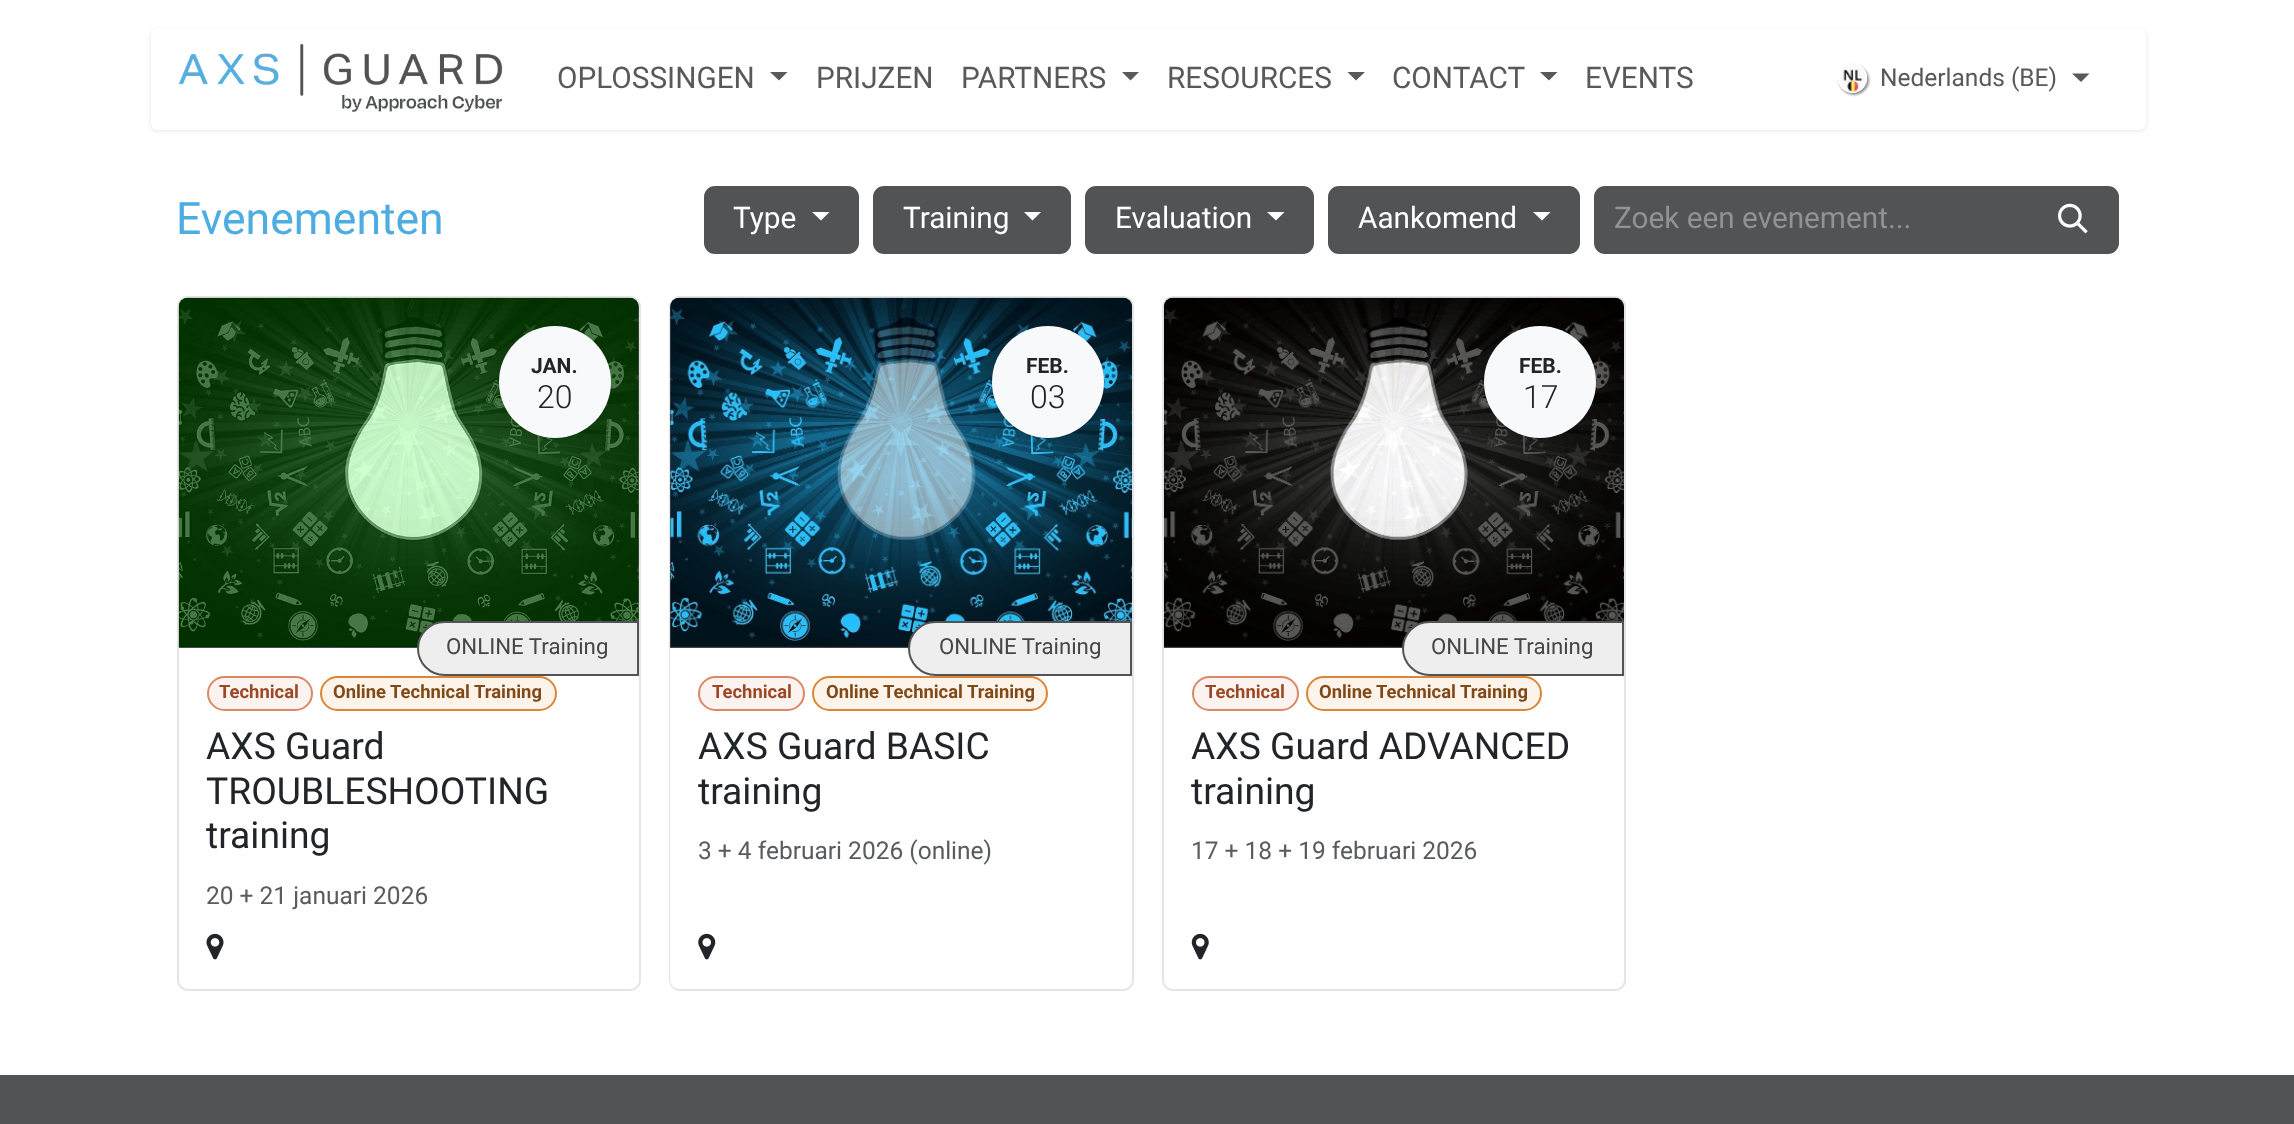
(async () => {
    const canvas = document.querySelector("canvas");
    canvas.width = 2294;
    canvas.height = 1124;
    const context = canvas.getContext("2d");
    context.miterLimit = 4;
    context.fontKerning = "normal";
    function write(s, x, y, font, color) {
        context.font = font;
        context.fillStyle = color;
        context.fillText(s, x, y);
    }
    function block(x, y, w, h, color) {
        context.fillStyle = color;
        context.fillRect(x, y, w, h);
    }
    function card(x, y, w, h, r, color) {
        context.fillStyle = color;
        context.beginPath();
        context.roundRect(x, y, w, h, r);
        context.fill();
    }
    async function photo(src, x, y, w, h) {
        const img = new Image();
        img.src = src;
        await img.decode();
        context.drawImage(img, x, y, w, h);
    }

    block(0, 0, 2294, 1124, "rgb(255, 255, 255)");
    context.fillStyle = "rgba(0, 0, 0, 0.1)";
    context.filter = "blur(2.5px)";
    context.beginPath();
    context.roundRect(151, 30, 1995, 101, 7);
    context.fill();
    context.filter = "none";
    card(151, 28, 1995, 102, 7, "rgb(255, 255, 255)");
    await photo("media/1.png", 178, 43, 325, 69);
    write("OPLOSSINGEN", 557, 88, "29.75px Roboto", "rgb(89, 89, 89)");
    context.beginPath();
    context.moveTo(770, 72);
    context.lineTo(787.5, 72);
    context.lineTo(779, 80.5);
    context.closePath();
    context.fill();
    write("PRIJZEN", 816, 88, "29.75px Roboto", "rgb(89, 89, 89)");
    write("PARTNERS", 961, 88, "29.75px Roboto", "rgb(89, 89, 89)");
    context.beginPath();
    context.moveTo(1122, 72);
    context.lineTo(1139, 72);
    context.lineTo(1130.5, 80.5);
    context.closePath();
    context.fill();
    write("RESOURCES", 1167, 88, "29.75px Roboto", "rgb(89, 89, 89)");
    context.beginPath();
    context.moveTo(1347.5, 72);
    context.lineTo(1365, 72);
    context.lineTo(1356, 80.5);
    context.closePath();
    context.fill();
    write("CONTACT", 1392, 88, "29.75px Roboto", "rgb(89, 89, 89)");
    context.beginPath();
    context.moveTo(1540, 72);
    context.lineTo(1557.5, 72);
    context.lineTo(1549, 80.5);
    context.closePath();
    context.fill();
    write("EVENTS", 1585, 88, "29.75px Roboto", "rgb(89, 89, 89)");
    context.save();
    context.beginPath();
    context.moveTo(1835, 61);
    context.lineTo(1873, 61);
    context.lineTo(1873, 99);
    context.lineTo(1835, 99);
    context.closePath();
    context.moveTo(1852.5, 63);
    context.bezierCurveTo(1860.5, 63, 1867, 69.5, 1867, 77.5);
    context.lineTo(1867, 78.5);
    context.bezierCurveTo(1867, 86.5, 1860.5, 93, 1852.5, 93);
    context.bezierCurveTo(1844.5, 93, 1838, 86.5, 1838, 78.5);
    context.lineTo(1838, 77.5);
    context.bezierCurveTo(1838, 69.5, 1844.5, 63, 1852.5, 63);
    context.closePath();
    context.clip("evenodd");
    context.fillStyle = "rgba(0, 0, 0, 0.43)";
    context.filter = "blur(1px)";
    context.beginPath();
    context.roundRect(1839, 65, 30, 30, 15);
    context.fill();
    context.filter = "none";
    context.restore();
    await photo("media/2.png", 1840, 63, 28, 30);
    write("Nederlands (BE)", 1880, 86, "24.5px Roboto", "rgb(89, 89, 89)");
    context.beginPath();
    context.moveTo(2072, 73.5);
    context.lineTo(2089.5, 73.5);
    context.lineTo(2081, 82);
    context.closePath();
    context.fill();
    write("Evenementen", 176, 234, "44.5px Roboto", "rgb(77, 173, 225)");
    context.fillStyle = "rgb(82, 83, 84)";
    context.beginPath();
    context.roundRect(705, 187, 153, 66, 10);
    context.fill();
    context.strokeStyle = "rgb(82, 83, 84)";
    context.lineWidth = 2;
    context.stroke();
    write("Type", 733, 228, "29.75px Roboto", "rgb(255, 255, 255)");
    context.beginPath();
    context.moveTo(812, 212);
    context.lineTo(829.5, 212);
    context.lineTo(821, 220.5);
    context.closePath();
    context.fill();
    context.fillStyle = "rgb(82, 83, 84)";
    context.beginPath();
    context.roundRect(874, 187, 196, 66, 10);
    context.fill();
    context.stroke();
    write("Training", 903, 228, "29.75px Roboto", "rgb(255, 255, 255)");
    context.beginPath();
    context.moveTo(1024, 212);
    context.lineTo(1041, 212);
    context.lineTo(1032.5, 220.5);
    context.closePath();
    context.fill();
    context.fillStyle = "rgb(82, 83, 84)";
    context.beginPath();
    context.roundRect(1086, 187, 227, 66, 10);
    context.fill();
    context.stroke();
    write("Evaluation", 1115, 228, "29.75px Roboto", "rgb(255, 255, 255)");
    context.beginPath();
    context.moveTo(1267, 212);
    context.lineTo(1284.5, 212);
    context.lineTo(1276, 220.5);
    context.closePath();
    context.fill();
    context.fillStyle = "rgb(82, 83, 84)";
    context.beginPath();
    context.roundRect(1329, 187, 250, 66, 10);
    context.fill();
    context.stroke();
    write("Aankomend", 1358, 228, "29.75px Roboto", "rgb(255, 255, 255)");
    context.beginPath();
    context.moveTo(1533, 212);
    context.lineTo(1550.5, 212);
    context.lineTo(1542, 220.5);
    context.closePath();
    context.fill();
    context.fillStyle = "rgb(82, 83, 84)";
    context.beginPath();
    context.roundRect(1594, 186, 436, 68, [11, 0, 0, 11]);
    context.fill();
    write("Zoek een evenement...", 1614, 228, "29.75px Roboto", "rgb(144, 146, 148)");
    context.fillStyle = "rgb(82, 83, 84)";
    context.beginPath();
    context.roundRect(2029, 187, 89, 66, [0, 10, 10, 0]);
    context.fill();
    context.stroke();
    await photo("media/3.png", 2058, 203, 30, 31);
    context.beginPath();
    context.roundRect(178, 297, 462, 693, 10);
    context.strokeStyle = "rgb(229, 229, 229)";
    context.stroke();
    context.beginPath();
    context.roundRect(179, 298, 460, 350, [9, 9, 0, 0]);
    context.fill();
    await photo("media/4.png", 178, 297, 461, 351);
    context.fillStyle = "rgba(0, 0, 0, 0.1)";
    context.filter = "blur(2.5px)";
    context.beginPath();
    context.roundRect(499, 327, 112, 112, 56);
    context.fill();
    context.filter = "none";
    context.fillStyle = "rgb(248, 249, 250)";
    context.beginPath();
    context.arc(555, 382, 56, 0, Math.PI * 2);
    context.fill();
    write("JAN.", 531, 373, "bold 21px Roboto", "rgb(33, 37, 41)");
    write("20", 537, 408, "300 32px Roboto", "rgb(33, 37, 41)");
    context.fillStyle = "rgba(255, 255, 255, 0.9)";
    context.beginPath();
    context.roundRect(179, 648, 460, 341, [0, 0, 9, 9]);
    context.fill();
    context.fillStyle = "rgb(238, 238, 238)";
    context.beginPath();
    context.roundRect(418, 622, 220, 53, [26.5, 0, 0, 26.5]);
    context.fill();
    context.strokeStyle = "rgb(82, 83, 84)";
    context.stroke();
    write("ONLINE Training", 446, 654, "22.25px Roboto", "rgb(69, 70, 71)");
    context.fillStyle = "rgb(251, 243, 240)";
    context.beginPath();
    context.roundRect(208, 677, 104, 33, 16.5);
    context.fill();
    context.strokeStyle = "rgb(219, 136, 101)";
    context.stroke();
    write("Technical", 219, 698, "bold 18.4px Roboto", "rgb(156, 72, 36)");
    context.fillStyle = "rgb(252, 243, 235)";
    context.beginPath();
    context.roundRect(321, 677, 235, 33, 16.5);
    context.fill();
    context.strokeStyle = "rgb(220, 133, 52)";
    context.stroke();
    write("Online Technical Training", 333, 698, "bold 18.4px Roboto", "rgb(128, 73, 22)");
    write("AXS Guard", 206, 759, "37.25px Roboto", "rgb(33, 37, 41)");
    write("TROUBLESHOOTING", 206, 804, "37.25px Roboto", "rgb(33, 37, 41)");
    write("training", 206, 848, "37.25px Roboto", "rgb(33, 37, 41)");
    write("20 + 21 januari 2026", 206, 904, "24.5px Roboto", "rgb(89, 92, 95)");
    await photo("media/5.png", 206, 933, 18, 27);
    context.beginPath();
    context.roundRect(670, 297, 463, 693, 10);
    context.strokeStyle = "rgb(229, 229, 229)";
    context.stroke();
    context.fillStyle = "rgb(82, 83, 84)";
    context.beginPath();
    context.roundRect(670, 298, 462, 350, [9, 9, 0, 0]);
    context.fill();
    await photo("media/6.png", 670, 297, 462, 351);
    context.fillStyle = "rgba(0, 0, 0, 0.1)";
    context.filter = "blur(2.5px)";
    context.beginPath();
    context.roundRect(992, 327, 112, 112, 56);
    context.fill();
    context.filter = "none";
    context.fillStyle = "rgb(248, 249, 250)";
    context.beginPath();
    context.arc(1048, 382, 56, 0, Math.PI * 2);
    context.fill();
    write("FEB.", 1026, 373, "bold 21px Roboto", "rgb(33, 37, 41)");
    write("03", 1030, 408, "300 32px Roboto", "rgb(33, 37, 41)");
    context.fillStyle = "rgba(255, 255, 255, 0.9)";
    context.beginPath();
    context.roundRect(670, 648, 462, 341, [0, 0, 9, 9]);
    context.fill();
    context.fillStyle = "rgb(238, 238, 238)";
    context.beginPath();
    context.roundRect(909, 622, 222, 53, [26.5, 0, 0, 26.5]);
    context.fill();
    context.strokeStyle = "rgb(82, 83, 84)";
    context.stroke();
    write("ONLINE Training", 939, 654, "22.25px Roboto", "rgb(69, 70, 71)");
    context.fillStyle = "rgb(251, 243, 240)";
    context.beginPath();
    context.roundRect(699, 677, 105, 33, 16.5);
    context.fill();
    context.strokeStyle = "rgb(219, 136, 101)";
    context.stroke();
    write("Technical", 712, 698, "bold 18.4px Roboto", "rgb(156, 72, 36)");
    context.fillStyle = "rgb(252, 243, 235)";
    context.beginPath();
    context.roundRect(813, 677, 234, 33, 16.5);
    context.fill();
    context.strokeStyle = "rgb(220, 133, 52)";
    context.stroke();
    write("Online Technical Training", 826, 698, "bold 18.4px Roboto", "rgb(128, 73, 22)");
    write("AXS Guard BASIC", 698, 759, "37.25px Roboto", "rgb(33, 37, 41)");
    write("training", 698, 804, "37.25px Roboto", "rgb(33, 37, 41)");
    write("3 + 4 februari 2026 (online)", 698, 859, "24.5px Roboto", "rgb(89, 92, 95)");
    await photo("media/7.png", 698, 933, 18, 27);
    context.beginPath();
    context.roundRect(1163, 297, 462, 693, 10);
    context.strokeStyle = "rgb(229, 229, 229)";
    context.stroke();
    context.fillStyle = "rgb(82, 83, 84)";
    context.beginPath();
    context.roundRect(1164, 298, 460, 350, [9, 9, 0, 0]);
    context.fill();
    await photo("media/8.png", 1164, 297, 460, 351);
    context.fillStyle = "rgb(248, 249, 250)";
    context.beginPath();
    context.arc(1540, 382, 56, 0, Math.PI * 2);
    context.fill();
    write("FEB.", 1519, 373, "bold 21px Roboto", "rgb(33, 37, 41)");
    write("17", 1523, 408, "300 32px Roboto", "rgb(33, 37, 41)");
    context.fillStyle = "rgba(255, 255, 255, 0.9)";
    context.beginPath();
    context.roundRect(1164, 648, 460, 341, [0, 0, 9, 9]);
    context.fill();
    context.fillStyle = "rgb(238, 238, 238)";
    context.beginPath();
    context.roundRect(1403, 622, 220, 53, [26.5, 0, 0, 26.5]);
    context.fill();
    context.strokeStyle = "rgb(82, 83, 84)";
    context.stroke();
    write("ONLINE Training", 1431, 654, "22.25px Roboto", "rgb(69, 70, 71)");
    context.fillStyle = "rgb(251, 243, 240)";
    context.beginPath();
    context.roundRect(1193, 677, 105, 33, 16.5);
    context.fill();
    context.strokeStyle = "rgb(219, 136, 101)";
    context.stroke();
    write("Technical", 1205, 698, "bold 18.4px Roboto", "rgb(156, 72, 36)");
    context.fillStyle = "rgb(252, 243, 235)";
    context.beginPath();
    context.roundRect(1307, 677, 234, 33, 16.5);
    context.fill();
    context.strokeStyle = "rgb(220, 133, 52)";
    context.stroke();
    write("Online Technical Training", 1319, 698, "bold 18.4px Roboto", "rgb(128, 73, 22)");
    write("AXS Guard ADVANCED", 1191, 759, "37.25px Roboto", "rgb(33, 37, 41)");
    write("training", 1191, 804, "37.25px Roboto", "rgb(33, 37, 41)");
    write("17 + 18 + 19 februari 2026", 1191, 859, "24.5px Roboto", "rgb(89, 92, 95)");
    await photo("media/9.png", 1191, 933, 18, 27);
    block(0, 1075, 2294, 49, "rgb(82, 83, 84)");
})();
